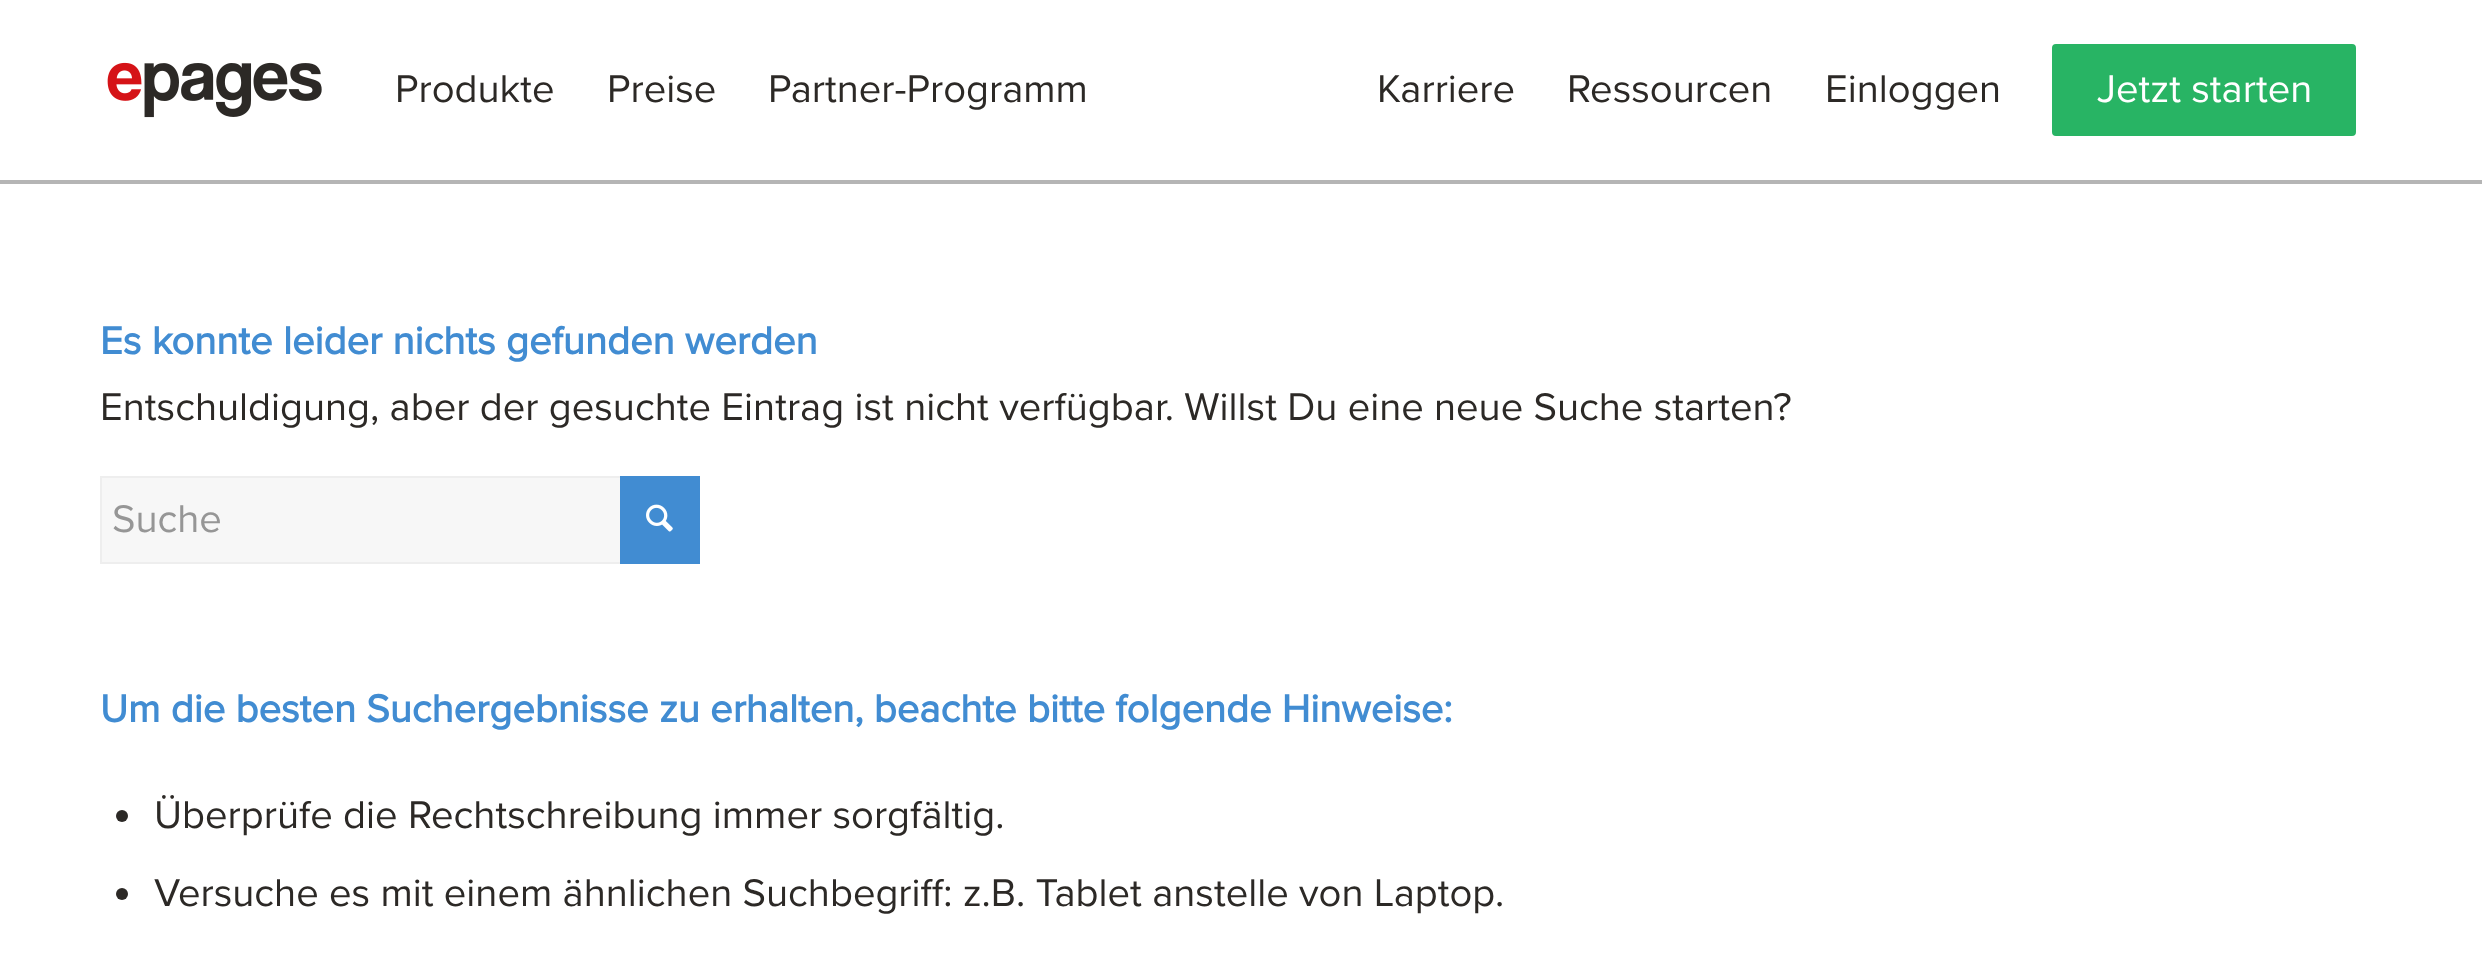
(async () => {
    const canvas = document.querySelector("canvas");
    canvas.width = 2482;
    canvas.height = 958;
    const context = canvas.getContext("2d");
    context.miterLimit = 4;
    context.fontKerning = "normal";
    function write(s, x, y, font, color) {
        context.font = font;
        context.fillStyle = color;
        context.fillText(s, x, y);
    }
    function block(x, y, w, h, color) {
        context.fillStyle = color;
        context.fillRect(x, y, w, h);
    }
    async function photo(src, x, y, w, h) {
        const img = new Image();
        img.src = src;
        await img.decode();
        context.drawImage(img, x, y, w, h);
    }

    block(0, 0, 2482, 958, "rgb(255, 255, 255)");
    block(0, 180, 2482, 4, "rgb(181, 181, 181)");
    await photo("media/1.png", 107, 62, 215, 56);
    write("Produkte", 395, 102, "40px Proxima Nova", "rgb(44, 41, 38)");
    write("Preise", 607, 102, "40px Proxima Nova", "rgb(44, 41, 38)");
    write("Partner-Programm", 768, 102, "40px Proxima Nova", "rgb(44, 41, 38)");
    write("Karriere", 1377, 102, "40px Proxima Nova", "rgb(44, 41, 38)");
    write("Ressourcen", 1567, 102, "40px Proxima Nova", "rgb(44, 41, 38)");
    write("Einloggen", 1825, 102, "40px Proxima Nova", "rgb(44, 41, 38)");
    context.fillStyle = "rgb(40, 180, 100)";
    context.beginPath();
    context.roundRect(2054, 46, 300, 88, 2);
    context.fill();
    context.strokeStyle = "rgb(40, 180, 100)";
    context.lineWidth = 4;
    context.stroke();
    write("Jetzt starten", 2097, 102, "40px Proxima Nova", "rgb(255, 255, 255)");
    write("Es konnte leider nichts gefunden werden", 100, 354, "bold 40px Proxima Nova", "rgb(65, 140, 210)");
    write("Entschuldigung, aber der gesuchte Eintrag ist nicht verfügbar. Willst Du eine neue Suche starten?", 100, 420, "40px Proxima Nova", "rgb(44, 41, 38)");
    block(102, 478, 518, 84, "rgb(247, 247, 247)");
    context.strokeStyle = "rgb(238, 238, 238)";
    context.lineWidth = 2;
    context.strokeRect(101, 477, 598, 86);
    write("Suche", 112, 532, "40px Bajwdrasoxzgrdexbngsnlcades", "rgb(150, 150, 150)");
    block(620, 476, 80, 88, "rgb(65, 140, 210)");
    await photo("media/2.png", 646, 504, 27, 28);
    write("Um die besten Suchergebnisse zu erhalten, beachte bitte folgende Hinweise:", 100, 722, "bold 40px Proxima Nova", "rgb(65, 140, 210)");
    context.fillStyle = "rgb(44, 41, 38)";
    context.beginPath();
    context.arc(122, 816, 6, 0, Math.PI * 2);
    context.fill();
    write("Überprüfe die Rechtschreibung immer sorgfältig.", 154, 828, "40px Proxima Nova", "rgb(44, 41, 38)");
    context.beginPath();
    context.arc(122, 894, 6, 0, Math.PI * 2);
    context.fill();
    write("Versuche es mit einem ähnlichen Suchbegriff: z.B. Tablet anstelle von Laptop.", 154, 906, "40px Proxima Nova", "rgb(44, 41, 38)");
})();
